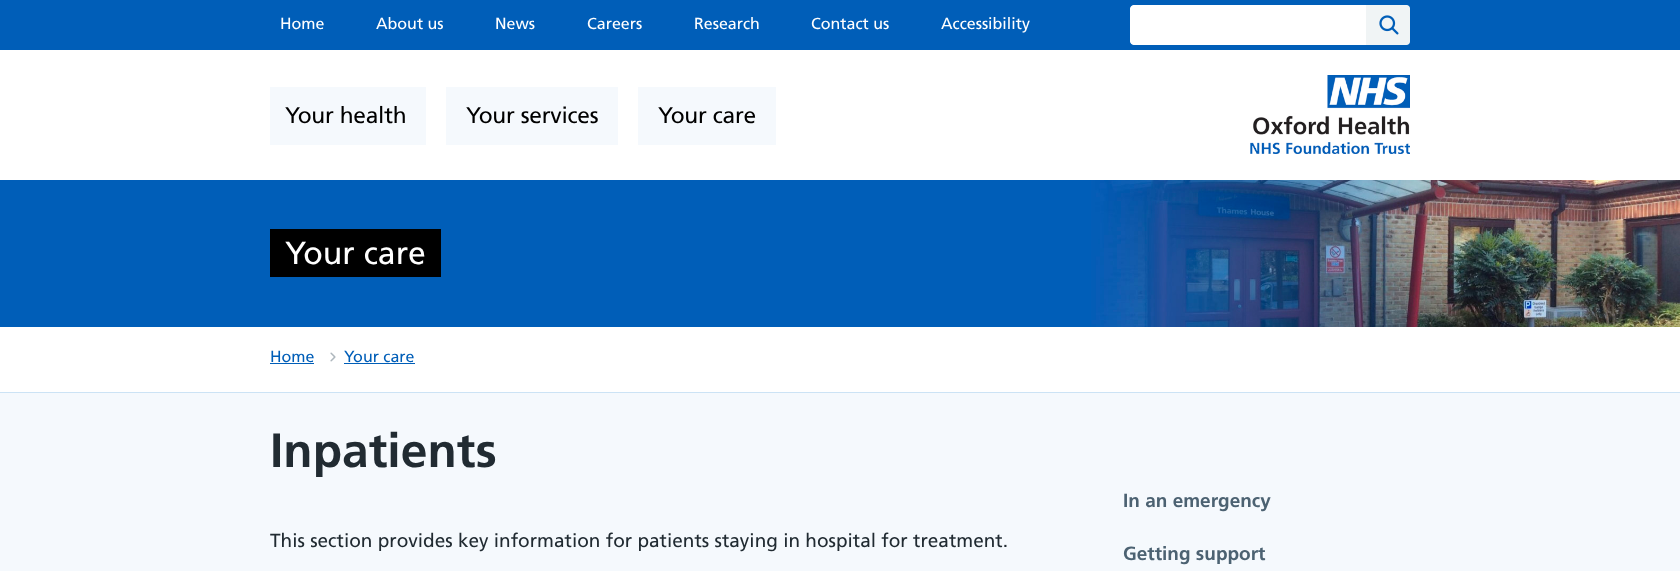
(async () => {
    const canvas = document.querySelector("canvas");
    canvas.width = 1680;
    canvas.height = 571;
    const context = canvas.getContext("2d");
    context.miterLimit = 4;
    context.fontKerning = "normal";
    function write(s, x, y, font, color) {
        context.font = font;
        context.fillStyle = color;
        context.fillText(s, x, y);
    }
    function block(x, y, w, h, color) {
        context.fillStyle = color;
        context.fillRect(x, y, w, h);
    }
    function card(x, y, w, h, r, color) {
        context.fillStyle = color;
        context.beginPath();
        context.roundRect(x, y, w, h, r);
        context.fill();
    }
    async function photo(src, x, y, w, h) {
        const img = new Image();
        img.src = src;
        await img.decode();
        context.drawImage(img, x, y, w, h);
    }

    block(0, 0, 1680, 571, "rgb(245, 249, 253)");
    block(0, 0, 1680, 50, "rgb(0, 94, 184)");
    write("Home", 280, 29, "16px Frutiger", "rgb(255, 255, 255)");
    write("About us", 376, 29, "16px Frutiger", "rgb(255, 255, 255)");
    write("News", 495, 29, "16px Frutiger", "rgb(255, 255, 255)");
    write("Careers", 587, 29, "16px Frutiger", "rgb(255, 255, 255)");
    write("Research", 694, 29, "16px Frutiger", "rgb(255, 255, 255)");
    write("Contact us", 811, 29, "16px Frutiger", "rgb(255, 255, 255)");
    write("Accessibility", 941, 29, "16px Frutiger", "rgb(255, 255, 255)");
    card(1130, 5, 280, 40, 5, "rgb(255, 255, 255)");
    context.beginPath();
    context.roundRect(1130.5, 5.5, 234, 39, [3.5, 0, 0, 3.5]);
    context.fill();
    context.strokeStyle = "rgb(255, 255, 255)";
    context.stroke();
    context.fillStyle = "rgb(240, 244, 245)";
    context.beginPath();
    context.roundRect(1366, 5, 44, 40, [0, 4, 4, 0]);
    context.fill();
    await photo("media/1.png", 1379, 15, 20, 20);
    block(0, 50, 1680, 130, "rgb(255, 255, 255)");
    block(270, 87, 156, 58, "rgb(245, 249, 253)");
    context.letterSpacing = "-0.25px";
    write("Your health", 285, 123, "22.75px Frutiger", "rgb(0, 0, 0)");
    block(446, 87, 172, 58, "rgb(245, 249, 253)");
    write("Your services", 466, 123, "22.75px Frutiger", "rgb(0, 0, 0)");
    block(638, 87, 138, 58, "rgb(245, 249, 253)");
    write("Your care", 658, 123, "22.75px Frutiger", "rgb(0, 0, 0)");
    await photo("media/2.png", 1250, 75, 160, 79);
    block(0, 180, 1091, 147, "rgb(0, 94, 184)");
    await photo("media/3.png", 1091, 180, 589, 147);
    block(270, 229, 171, 48, "rgb(0, 0, 0)");
    context.letterSpacing = "0px";
    write("Your care", 285, 264, "32px Frutiger", "rgb(255, 255, 255)");
    block(0, 327, 1680, 65, "rgb(255, 255, 255)");
    block(0, 392, 1680, 1, "rgb(204, 227, 245)");
    write("Home", 270, 362, "16px Frutiger", "rgb(0, 94, 184)");
    block(270, 363, 44, 1, "rgb(0, 94, 184)");
    await photo("media/4.png", 330, 352, 6, 10);
    write("Your care", 344, 362, "16px Frutiger", "rgb(0, 94, 184)");
    block(344, 363, 71, 1, "rgb(0, 94, 184)");
    write("Inpatients", 270, 467, "bold 48px Frutiger", "rgb(33, 43, 50)");
    write("This section provides key information for patients staying in hospital for treatment.", 270, 547, "19px Frutiger", "rgb(33, 43, 50)");
    write("In an emergency", 1123, 507, "bold 19px Frutiger", "rgb(76, 98, 114)");
    write("Getting support", 1123, 560, "bold 19px Frutiger", "rgb(76, 98, 114)");
})();
